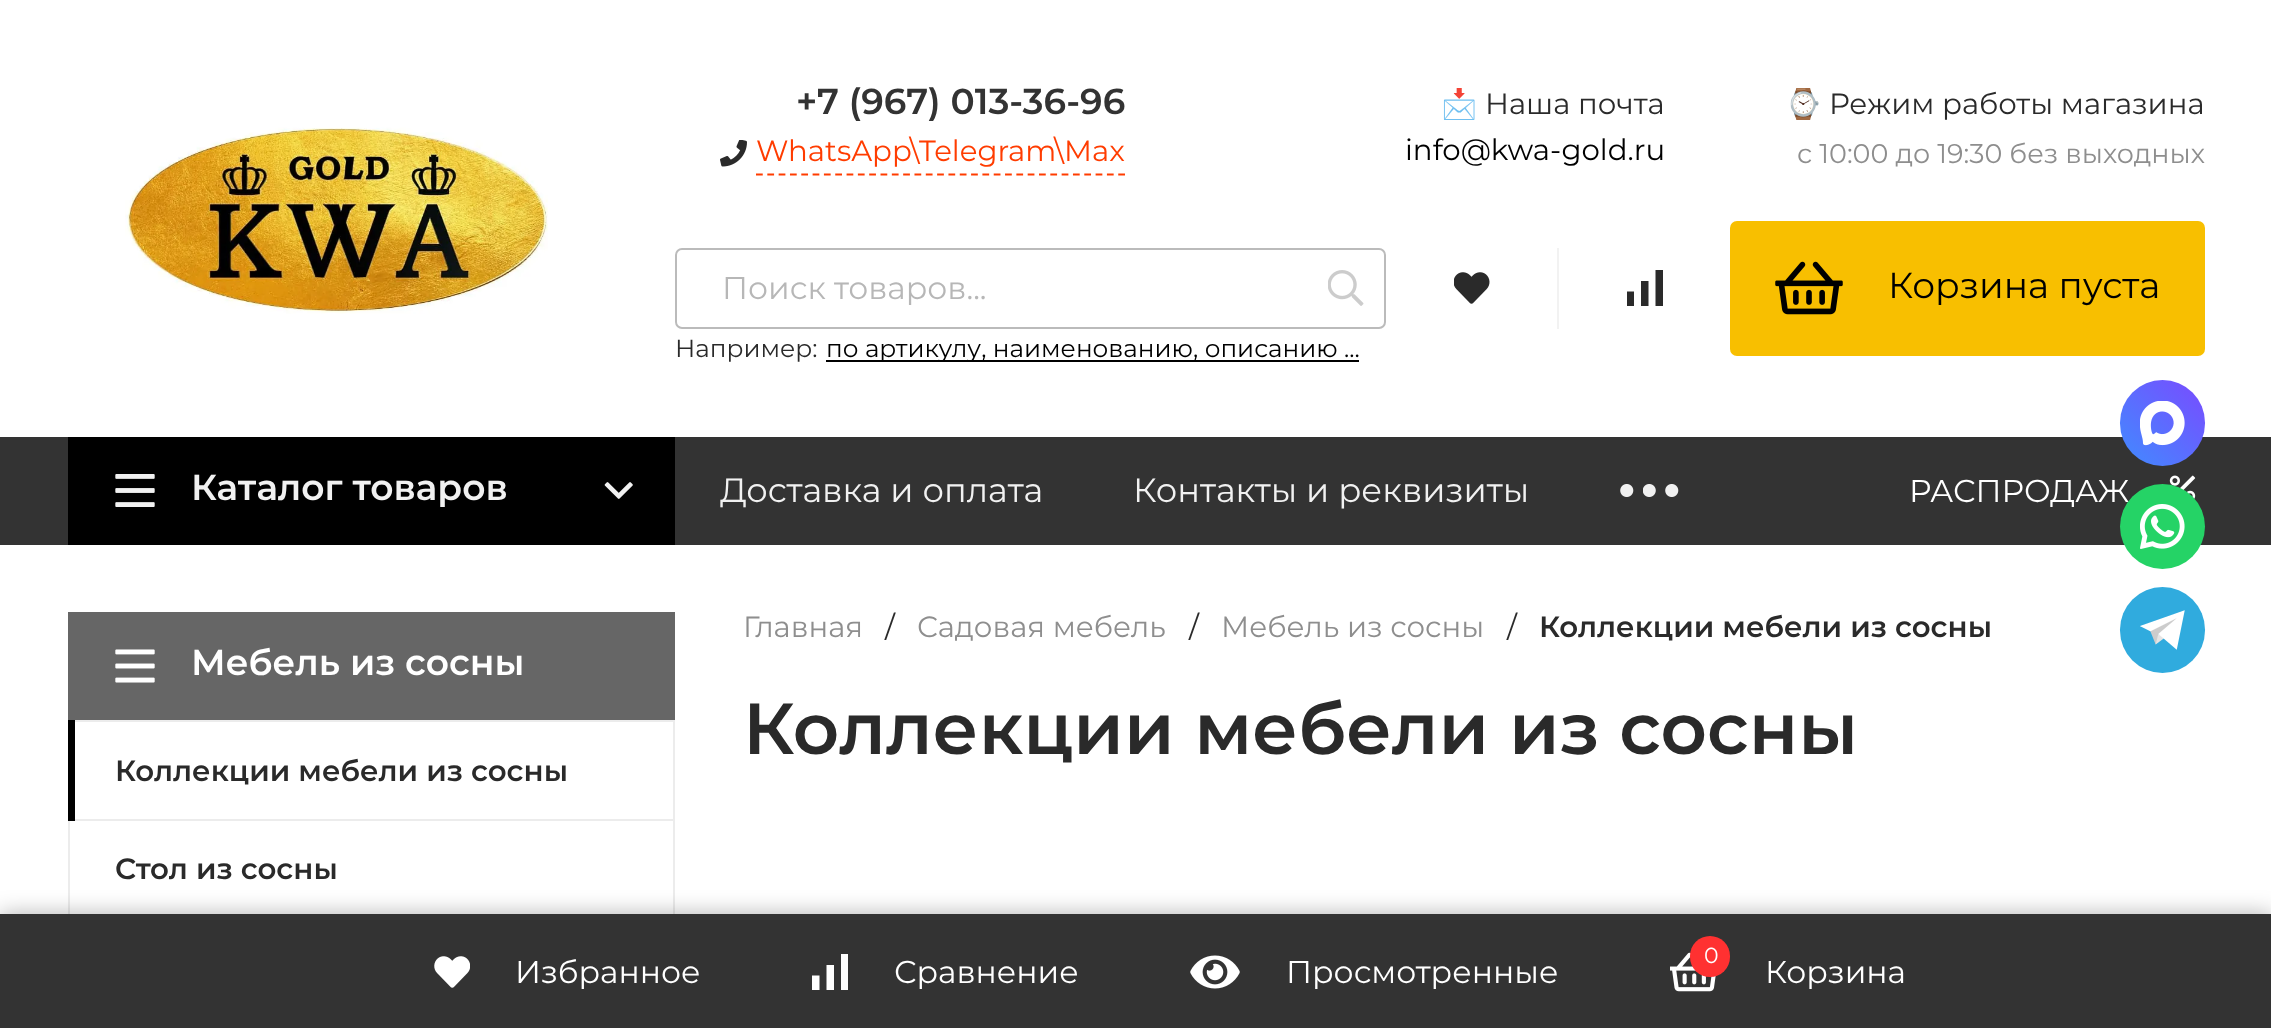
(async () => {
    const canvas = document.querySelector("canvas");
    canvas.width = 2271;
    canvas.height = 1028;
    const context = canvas.getContext("2d");
    context.miterLimit = 4;
    context.fontKerning = "normal";
    function write(s, x, y, font, color) {
        context.font = font;
        context.fillStyle = color;
        context.fillText(s, x, y);
    }
    function block(x, y, w, h, color) {
        context.fillStyle = color;
        context.fillRect(x, y, w, h);
    }
    function card(x, y, w, h, r, color) {
        context.fillStyle = color;
        context.beginPath();
        context.roundRect(x, y, w, h, r);
        context.fill();
    }
    async function photo(src, x, y, w, h) {
        const img = new Image();
        img.src = src;
        await img.decode();
        context.drawImage(img, x, y, w, h);
    }
    let gradient;

    block(0, 0, 2271, 1028, "rgb(255, 255, 255)");
    await photo("media/1.png", 125, 127, 423, 187);
    write("+7 (967) 013-36-96", 796, 114, "600 36px Montserrat", "rgb(51, 51, 51)");
    await photo("media/2.png", 720, 140, 27, 27);
    context.beginPath();
    context.moveTo(756, 174.5);
    context.lineTo(1125, 174.5);
    context.strokeStyle = "rgb(255, 60, 0)";
    context.lineWidth = 2.2;
    context.setLineDash([6.75, 4.57]);
    context.stroke();
    write("WhatsApp\\Telegram\\Max", 756, 161, "29.25px Montserrat", "rgb(255, 60, 0)");
    write("📩", 1441, 114, "29.25px Noto Color Emoji", "rgb(42, 42, 42)");
    write("Наша почта", 1485, 114, "29.25px Montserrat", "rgb(42, 42, 42)");
    write("info@kwa-gold.ru", 1405, 160, "29.25px Montserrat", "rgb(0, 0, 0)");
    write("⌚", 1785, 114, "29.25px Noto Color Emoji", "rgb(42, 42, 42)");
    write("Режим работы магазина", 1829, 114, "29.25px Montserrat", "rgb(42, 42, 42)");
    write("с 10:00 до 19:30 без выходных", 1797, 163, "27px Montserrat", "rgb(142, 142, 142)");
    context.beginPath();
    context.roundRect(676, 249, 709, 79, 6);
    context.strokeStyle = "rgb(187, 187, 187)";
    context.lineWidth = 2;
    context.setLineDash([]);
    context.stroke();
    write("Поиск товаров...", 722, 299, "31.5px Montserrat", "rgb(183, 183, 183)");
    await photo("media/3.png", 1328, 270, 36, 36);
    write("Например:", 675, 357, "24.75px Montserrat", "rgb(42, 42, 42)");
    block(826, 360, 533, 2, "rgb(0, 0, 0)");
    write("по артикулу, наименованию, описанию ...", 826, 357, "24.75px Montserrat", "rgb(0, 0, 0)");
    block(1557, 248, 2, 81, "rgb(242, 242, 242)");
    await photo("media/4.png", 1454, 272, 36, 32);
    context.fillStyle = "rgb(42, 42, 42)";
    context.beginPath();
    context.moveTo(1641, 306);
    context.lineTo(1641, 281);
    context.lineTo(1648.5, 281);
    context.lineTo(1648.5, 306);
    context.closePath();
    context.moveTo(1655.5, 306);
    context.lineTo(1655.5, 270);
    context.lineTo(1663, 270);
    context.lineTo(1663, 306);
    context.closePath();
    context.moveTo(1627, 306);
    context.lineTo(1627, 291.5);
    context.lineTo(1634, 291.5);
    context.lineTo(1634, 306);
    context.closePath();
    context.fill();
    card(1730, 221, 475, 135, 7, "rgb(248, 191, 0)");
    await photo("media/5.png", 1775, 261, 68, 54);
    write("Корзина пуста", 1888, 298, "36px Montserrat", "rgb(0, 0, 0)");
    block(0, 437, 2271, 108, "rgb(51, 51, 51)");
    block(68, 437, 607, 108, "rgb(0, 0, 0)");
    await photo("media/6.png", 115, 474, 40, 33);
    write("Каталог товаров", 191, 500, "600 36px Montserrat", "rgb(241, 241, 241)");
    await photo("media/7.png", 604, 482, 29, 17);
    write("Доставка и оплата", 720, 502, "33.75px Montserrat", "rgb(241, 241, 241)");
    write("Контакты и реквизиты", 1133, 502, "33.75px Montserrat", "rgb(241, 241, 241)");
    await photo("media/8.png", 1620, 484, 14, 13);
    await photo("media/9.png", 1643, 484, 13, 13);
    await photo("media/8.png", 1665, 484, 14, 13);
    write("РАСПРОДАЖ", 1909, 502, "31.5px Montserrat", "rgb(255, 255, 255)");
    await photo("media/10.png", 2169, 475, 27, 24);
    gradient = context.createLinearGradient(2120, 466, 2205, 380);
    gradient.addColorStop(0, "rgb(64, 140, 255)");
    gradient.addColorStop(1, "rgb(122, 74, 255)");
    context.fillStyle = gradient;
    context.beginPath();
    context.roundRect(2120, 380, 85, 86, 42.5);
    context.fill();
    await photo("media/11.png", 2140, 401, 45, 45);
    context.fillStyle = "rgb(37, 211, 102)";
    context.beginPath();
    context.arc(2162.5, 526.5, 42.5, 0, Math.PI * 2);
    context.fill();
    await photo("media/12.png", 2140, 504, 45, 45);
    card(2120, 587, 85, 86, 42.5, "rgb(48, 171, 222)");
    await photo("media/13.png", 2140, 610, 45, 40);
    block(68, 612, 607, 108, "rgb(102, 102, 102)");
    await photo("media/14.png", 115, 649, 40, 34);
    write("Мебель из сосны", 191, 675, "600 36px Montserrat", "rgb(255, 255, 255)");
    block(68, 720, 607, 2, "rgb(236, 236, 236)");
    block(673, 720, 2, 194, "rgb(236, 236, 236)");
    block(68, 821, 2, 93, "rgb(236, 236, 236)");
    block(70, 819, 603, 2, "rgb(236, 236, 236)");
    block(68, 720, 7, 101, "rgb(0, 0, 0)");
    write("Коллекции мебели из сосны", 115, 781, "600 29.25px Montserrat", "rgb(42, 42, 42)");
    write("Стол из сосны", 115, 879, "600 29.25px Montserrat", "rgb(42, 42, 42)");
    write("Главная", 743, 637, "29.25px Montserrat", "rgb(142, 142, 142)");
    write("/", 885, 637, "29.25px Montserrat", "rgb(42, 42, 42)");
    write("Садовая мебель", 917, 637, "29.25px Montserrat", "rgb(142, 142, 142)");
    write("/", 1189, 637, "29.25px Montserrat", "rgb(42, 42, 42)");
    write("Мебель из сосны", 1221, 637, "29.25px Montserrat", "rgb(142, 142, 142)");
    write("/", 1507, 637, "29.25px Montserrat", "rgb(42, 42, 42)");
    write("Коллекции мебели из сосны", 1539, 637, "600 29.25px Montserrat", "rgb(42, 42, 42)");
    write("Коллекции мебели из сосны", 743, 754, "600 72px Montserrat", "rgb(42, 42, 42)");
    context.fillStyle = "rgba(0, 0, 0, 0.3)";
    context.filter = "blur(11px)";
    context.beginPath();
    context.rect(0, 914, 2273, 114);
    context.fill();
    context.filter = "none";
    block(0, 914, 2271, 114, "rgb(51, 51, 51)");
    await photo("media/15.png", 434, 956, 36, 32);
    write("Избранное", 515, 983, "31.5px Montserrat", "rgb(255, 255, 255)");
    context.beginPath();
    context.moveTo(826.5, 990);
    context.lineTo(826.5, 965);
    context.lineTo(834, 965);
    context.lineTo(834, 990);
    context.closePath();
    context.moveTo(841, 990);
    context.lineTo(841, 954);
    context.lineTo(848, 954);
    context.lineTo(848, 990);
    context.closePath();
    context.moveTo(812, 990);
    context.lineTo(812, 975.5);
    context.lineTo(819.5, 975.5);
    context.lineTo(819.5, 990);
    context.closePath();
    context.fill();
    write("Сравнение", 894, 983, "31.5px Montserrat", "rgb(255, 255, 255)");
    await photo("media/16.png", 1190, 955, 50, 34);
    write("Просмотренные", 1286, 983, "31.5px Montserrat", "rgb(255, 255, 255)");
    await photo("media/17.png", 1670, 952, 46, 40);
    card(1690, 936, 40, 41, 20, "rgb(255, 49, 49)");
    write("0", 1704, 963, "22px Montserrat", "rgb(255, 255, 255)");
    write("Корзина", 1765, 983, "31.5px Montserrat", "rgb(255, 255, 255)");
})();
